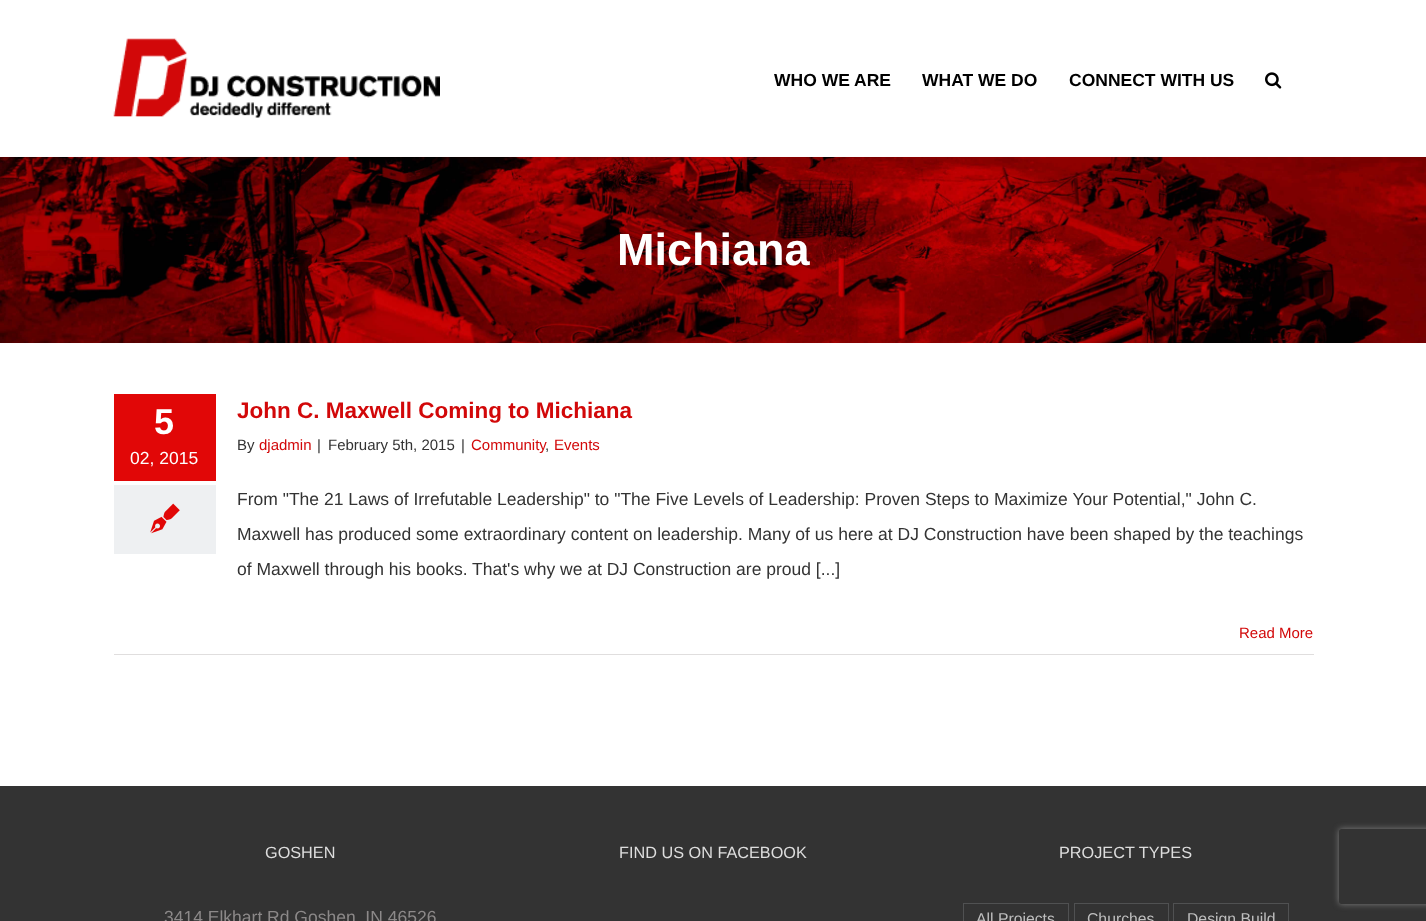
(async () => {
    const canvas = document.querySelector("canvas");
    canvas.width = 1426;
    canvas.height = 921;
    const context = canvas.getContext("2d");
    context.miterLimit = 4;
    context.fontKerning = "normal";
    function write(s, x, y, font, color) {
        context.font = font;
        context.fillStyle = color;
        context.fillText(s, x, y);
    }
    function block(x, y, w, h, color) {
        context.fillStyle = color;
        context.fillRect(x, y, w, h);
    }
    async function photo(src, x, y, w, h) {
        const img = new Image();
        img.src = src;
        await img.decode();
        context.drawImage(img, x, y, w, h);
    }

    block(0, 0, 1426, 921, "rgb(255, 255, 255)");
    await photo("media/1.png", 113, 38, 327, 80);
    write("WHO WE ARE", 774, 86, "bold 17.5px Liberation Sans", "rgb(0, 0, 0)");
    write("WHAT WE DO", 922, 86, "bold 17.5px Liberation Sans", "rgb(0, 0, 0)");
    write("CONNECT WITH US", 1069, 86, "bold 17.5px Liberation Sans", "rgb(0, 0, 0)");
    await photo("media/2.png", 1265, 72, 17, 17);
    await photo("media/3.png", 0, 157, 1426, 186);
    block(0, 156, 1426, 1, "rgb(255, 252, 252)");
    block(0, 343, 1426, 1, "rgb(255, 252, 252)");
    write("Michiana", 617, 265, "bold 45px Liberation Sans", "rgb(255, 255, 255)");
    block(114, 394, 102, 87, "rgb(225, 7, 7)");
    write("5", 154, 434, "bold 36px Liberation Sans", "rgb(255, 255, 255)");
    write("02, 2015", 130, 464, "17.5px Liberation Sans", "rgb(255, 255, 255)");
    block(114, 485, 102, 69, "rgb(238, 240, 242)");
    await photo("media/4.png", 150, 503, 30, 31);
    write("John C. Maxwell Coming to Michiana", 237, 418, "bold 22.5px Liberation Sans", "rgb(210, 8, 9)");
    write("By", 237, 450, "15px Liberation Sans", "rgb(51, 51, 51)");
    write("djadmin", 259, 450, "15px Liberation Sans", "rgb(210, 8, 9)");
    write("|", 317, 450, "15px Liberation Sans", "rgb(51, 51, 51)");
    write("February 5th, 2015", 328, 450, "15px Liberation Sans", "rgb(51, 51, 51)");
    write("|", 461, 450, "15px Liberation Sans", "rgb(51, 51, 51)");
    write("Community", 471, 450, "15px Liberation Sans", "rgb(210, 8, 9)");
    write(",", 545, 450, "15px Liberation Sans", "rgb(51, 51, 51)");
    write("Events", 554, 450, "15px Liberation Sans", "rgb(210, 8, 9)");
    write("From \"The 21 Laws of Irrefutable Leadership\" to \"The Five Levels of Leadership: Proven Steps to Maximize Your Potential,\" John C.", 237, 505, "17.5px Liberation Sans", "rgb(51, 51, 51)");
    write("Maxwell has produced some extraordinary content on leadership. Many of us here at DJ Construction have been shaped by the teachings", 237, 540, "17.5px Liberation Sans", "rgb(51, 51, 51)");
    write("of Maxwell through his books. That's why we at DJ Construction are proud [...]", 237, 575, "17.5px Liberation Sans", "rgb(51, 51, 51)");
    block(114, 654, 1200, 1, "rgb(224, 222, 222)");
    write("Read More", 1239, 638, "15px Liberation Sans", "rgb(210, 8, 9)");
    block(0, 786, 1426, 135, "rgb(51, 51, 51)");
    write("GOSHEN", 265, 858, "16.25px Liberation Sans", "rgb(221, 221, 221)");
    write("3414 Elkhart Rd Goshen, IN 46526", 164, 923, "17.5px Liberation Sans", "rgb(140, 137, 137)");
    write("FIND US ON FACEBOOK", 619, 858, "16.25px Liberation Sans", "rgb(221, 221, 221)");
    write("PROJECT TYPES", 1059, 858, "16.25px Liberation Sans", "rgb(221, 221, 221)");
    context.strokeStyle = "rgb(80, 81, 82)";
    context.strokeRect(963.5, 903.5, 105, 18);
    write("All Projects", 976, 924, "15.75px Liberation Sans", "rgb(191, 191, 191)");
    context.strokeRect(1074.5, 903.5, 94, 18);
    write("Churches", 1087, 924, "15.75px Liberation Sans", "rgb(191, 191, 191)");
    context.strokeRect(1173.5, 903.5, 115, 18);
    write("Design Build", 1187, 924, "15.75px Liberation Sans", "rgb(191, 191, 191)");
    context.save();
    context.beginPath();
    context.moveTo(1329, 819);
    context.lineTo(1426, 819);
    context.lineTo(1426, 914);
    context.lineTo(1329, 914);
    context.closePath();
    context.moveTo(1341.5, 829);
    context.lineTo(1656.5, 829);
    context.bezierCurveTo(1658, 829, 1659, 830, 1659, 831.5);
    context.lineTo(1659, 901.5);
    context.bezierCurveTo(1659, 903, 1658, 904, 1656.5, 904);
    context.lineTo(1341.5, 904);
    context.bezierCurveTo(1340, 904, 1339, 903, 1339, 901.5);
    context.lineTo(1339, 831.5);
    context.bezierCurveTo(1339, 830, 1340, 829, 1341.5, 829);
    context.closePath();
    context.clip("evenodd");
    context.fillStyle = "rgb(128, 128, 128)";
    context.filter = "blur(3px)";
    context.beginPath();
    context.roundRect(1339, 829, 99, 75, 2.5);
    context.fill();
    context.filter = "none";
    context.restore();
})();
